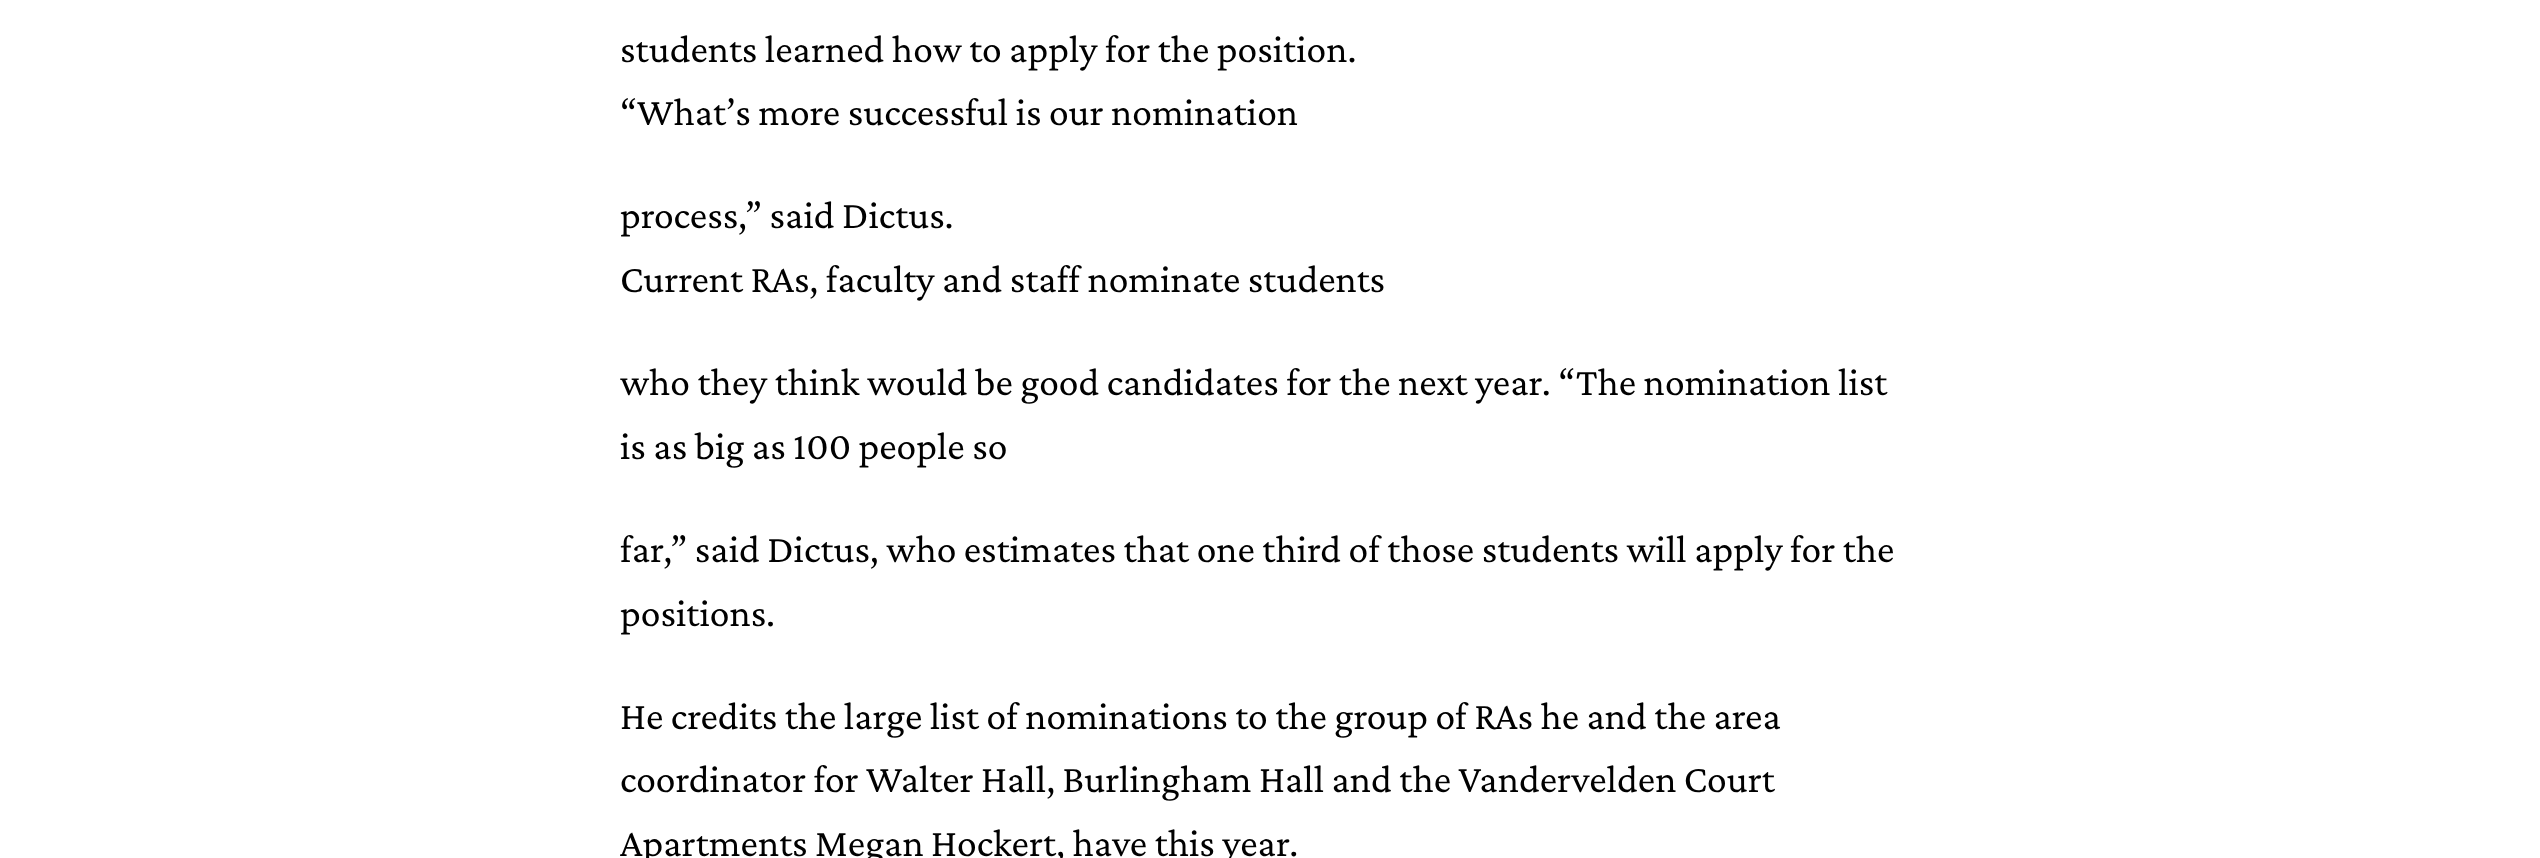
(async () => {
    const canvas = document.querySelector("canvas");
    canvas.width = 2540;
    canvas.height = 858;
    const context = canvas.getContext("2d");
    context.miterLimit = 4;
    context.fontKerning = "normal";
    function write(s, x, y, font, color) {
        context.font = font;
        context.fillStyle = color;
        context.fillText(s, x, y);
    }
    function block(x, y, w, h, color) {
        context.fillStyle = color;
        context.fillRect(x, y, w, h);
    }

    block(0, 0, 2540, 858, "rgb(255, 255, 255)");
    write("students learned how to apply for the position.", 620, 62, "39.6px Crimson Pro", "rgb(0, 0, 0)");
    write("“What’s more successful is our nomination", 620, 125, "39.6px Crimson Pro", "rgb(0, 0, 0)");
    write("process,” said Dictus.", 620, 228, "39.6px Crimson Pro", "rgb(0, 0, 0)");
    write("Current RAs, faculty and staff nominate students", 620, 292, "39.6px Crimson Pro", "rgb(0, 0, 0)");
    write("who they think would be good candidates for the next year. “The nomination list", 620, 395, "39.6px Crimson Pro", "rgb(0, 0, 0)");
    write("is as big as 100 people so", 620, 459, "39.6px Crimson Pro", "rgb(0, 0, 0)");
    write("far,” said Dictus, who estimates that one third of those students will apply for the", 620, 562, "39.6px Crimson Pro", "rgb(0, 0, 0)");
    write("positions.", 620, 626, "39.6px Crimson Pro", "rgb(0, 0, 0)");
    write("He credits the large list of nominations to the group of RAs he and the area", 620, 729, "39.6px Crimson Pro", "rgb(0, 0, 0)");
    write("coordinator for Walter Hall, Burlingham Hall and the Vandervelden Court", 620, 792, "39.6px Crimson Pro", "rgb(0, 0, 0)");
    write("Apartments Megan Hockert, have this year.", 620, 856, "39.6px Crimson Pro", "rgb(0, 0, 0)");
})();
